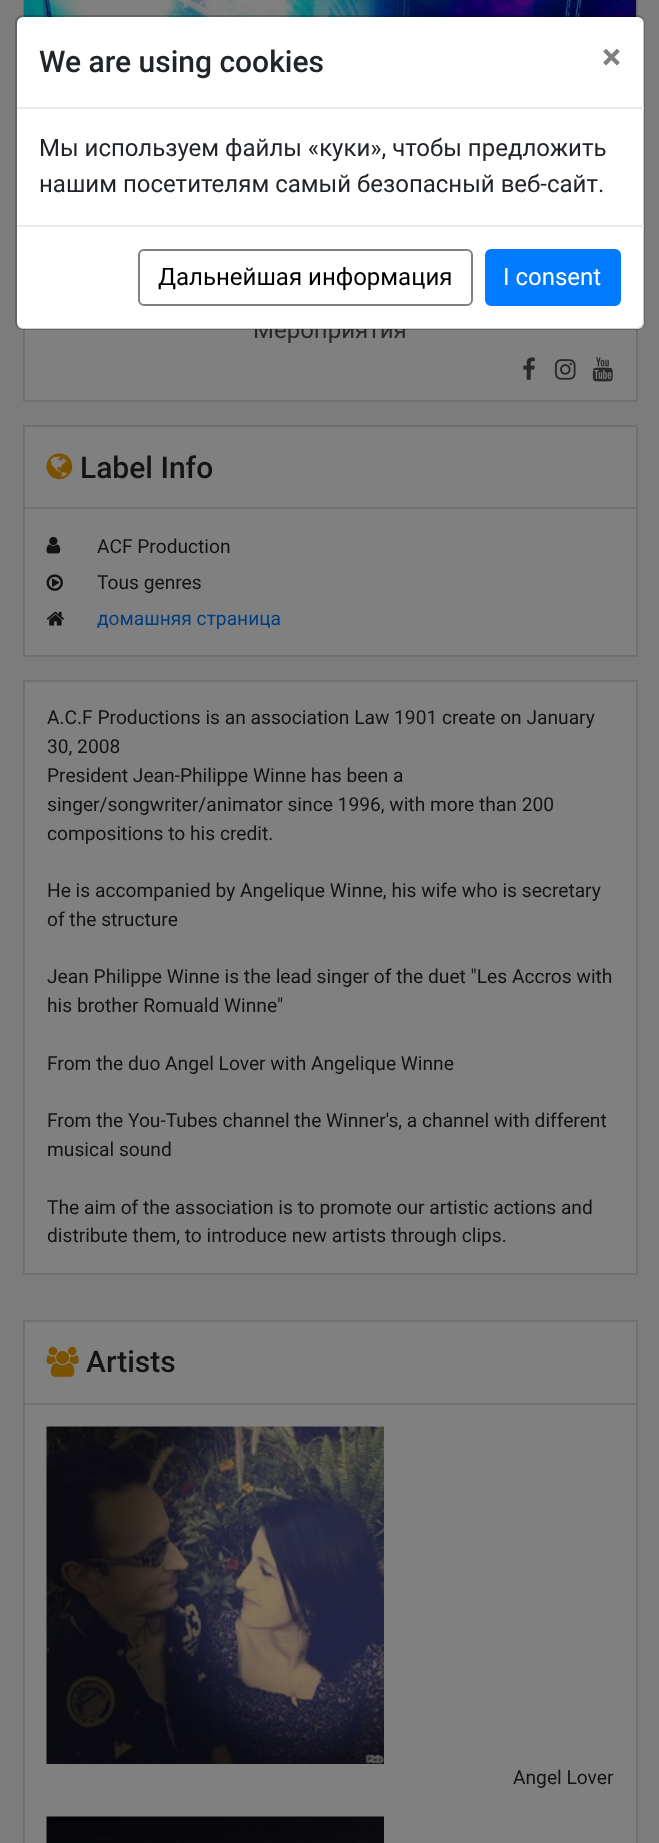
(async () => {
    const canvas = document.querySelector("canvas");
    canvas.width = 659;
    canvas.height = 1843;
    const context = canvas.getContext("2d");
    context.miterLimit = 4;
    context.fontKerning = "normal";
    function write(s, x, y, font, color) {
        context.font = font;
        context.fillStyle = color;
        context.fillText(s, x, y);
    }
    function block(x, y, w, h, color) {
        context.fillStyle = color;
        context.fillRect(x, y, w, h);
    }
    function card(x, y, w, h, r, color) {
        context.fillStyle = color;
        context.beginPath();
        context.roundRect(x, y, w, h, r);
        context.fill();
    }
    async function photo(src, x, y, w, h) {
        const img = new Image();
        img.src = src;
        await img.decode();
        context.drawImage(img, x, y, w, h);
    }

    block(0, 0, 659, 1843, "rgb(124, 124, 124)");
    block(25, 329, 611, 71, "rgb(128, 128, 128)");
    context.strokeStyle = "rgb(112, 112, 112)";
    context.lineWidth = 2;
    context.strokeRect(24, 267, 613, 134);
    write("Мероприятия", 253, 338, "24px Roboto", "rgb(40, 40, 40)");
    card(17, 17, 627, 312, 6, "rgb(255, 255, 255)");
    block(23, 0, 1, 17, "rgb(108, 108, 108)");
    await photo("media/1.png", 24, 0, 612, 17);
    block(636, 0, 2, 17, "rgb(108, 108, 108)");
    context.beginPath();
    context.roundRect(16, 16, 628, 313, 7);
    context.strokeStyle = "rgba(0, 0, 0, 0.2)";
    context.stroke();
    block(17, 107, 627, 2, "rgb(233, 236, 239)");
    write("We are using cookies", 39, 72, "500 30px Roboto", "rgb(33, 37, 41)");
    write("×", 602, 69, "bold 36px Roboto", "rgb(128, 128, 128)");
    write("Мы используем файлы «куки», чтобы предложить", 39, 156, "24px Roboto", "rgb(33, 37, 41)");
    write("нашим посетителям самый безопасный веб-сайт.", 39, 192, "24px Roboto", "rgb(33, 37, 41)");
    block(17, 225, 627, 2, "rgb(233, 236, 239)");
    context.beginPath();
    context.roundRect(139, 250, 333, 55, 5);
    context.strokeStyle = "rgb(128, 128, 128)";
    context.stroke();
    write("Дальнейшая информация", 158, 285, "24px Roboto", "rgb(0, 0, 0)");
    context.fillStyle = "rgb(0, 123, 255)";
    context.beginPath();
    context.roundRect(486, 250, 134, 55, 5);
    context.fill();
    context.strokeStyle = "rgb(0, 123, 255)";
    context.stroke();
    write("I consent", 503, 285, "24px Roboto", "rgb(255, 255, 255)");
    await photo("media/2.png", 523, 357, 12, 23);
    await photo("media/3.png", 555, 359, 21, 21);
    await photo("media/4.png", 592, 357, 21, 25);
    context.fillStyle = "rgb(128, 128, 128)";
    context.beginPath();
    context.rect(24, 426, 613, 230);
    context.fill();
    context.strokeStyle = "rgb(112, 112, 112)";
    context.stroke();
    await photo("media/5.png", 46, 453, 27, 27);
    write("Label Info", 80, 478, "500 30px Roboto", "rgb(17, 19, 21)");
    block(24, 507, 612, 2, "rgba(0, 0, 0, 0.12)");
    await photo("media/6.png", 46, 536, 15, 18);
    write("ACF Production", 97, 553, "19.2px Roboto", "rgb(17, 19, 21)");
    await photo("media/7.png", 46, 574, 17, 17);
    write("Tous genres", 97, 589, "19.2px Roboto", "rgb(17, 19, 21)");
    await photo("media/8.png", 46, 611, 18, 15);
    write("домашняя страница", 97, 625, "19.2px Roboto", "rgb(0, 62, 128)");
    context.fillStyle = "rgb(128, 128, 128)";
    context.beginPath();
    context.rect(24, 681, 613, 593);
    context.fill();
    context.stroke();
    write("A.C.F Productions is an association Law 1901 create on January", 47, 724, "19.2px Roboto", "rgb(17, 19, 21)");
    write("30, 2008", 47, 753, "19.2px Roboto", "rgb(17, 19, 21)");
    write("President Jean-Philippe Winne has been a", 47, 782, "19.2px Roboto", "rgb(17, 19, 21)");
    write("singer/songwriter/animator since 1996, with more than 200", 47, 811, "19.2px Roboto", "rgb(17, 19, 21)");
    write("compositions to his credit.", 47, 840, "19.2px Roboto", "rgb(17, 19, 21)");
    write("He is accompanied by Angelique Winne, his wife who is secretary", 47, 897, "19.2px Roboto", "rgb(17, 19, 21)");
    write("of the structure", 47, 926, "19.2px Roboto", "rgb(17, 19, 21)");
    write("Jean Philippe Winne is the lead singer of the duet \"Les Accros with", 47, 983, "19.2px Roboto", "rgb(17, 19, 21)");
    write("his brother Romuald Winne\"", 47, 1012, "19.2px Roboto", "rgb(17, 19, 21)");
    write("From the duo Angel Lover with Angelique Winne", 47, 1070, "19.2px Roboto", "rgb(17, 19, 21)");
    write("From the You-Tubes channel the Winner's, a channel with different", 47, 1127, "19.2px Roboto", "rgb(17, 19, 21)");
    write("musical sound", 47, 1156, "19.2px Roboto", "rgb(17, 19, 21)");
    write("The aim of the association is to promote our artistic actions and", 47, 1214, "19.2px Roboto", "rgb(17, 19, 21)");
    write("distribute them, to introduce new artists through clips.", 47, 1242, "19.2px Roboto", "rgb(17, 19, 21)");
    context.fillStyle = "rgb(128, 128, 128)";
    context.beginPath();
    context.rect(24, 1321, 613, 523);
    context.fill();
    context.stroke();
    await photo("media/9.png", 46, 1346, 33, 31);
    write("Artists", 86, 1372, "500 30px Roboto", "rgb(17, 19, 21)");
    block(24, 1403, 612, 2, "rgba(0, 0, 0, 0.12)");
    await photo("media/10.png", 46, 1426, 338, 338);
    write("Angel Lover", 513, 1784, "19.2px Roboto", "rgb(17, 19, 21)");
    await photo("media/11.png", 46, 1816, 338, 27);
})();
